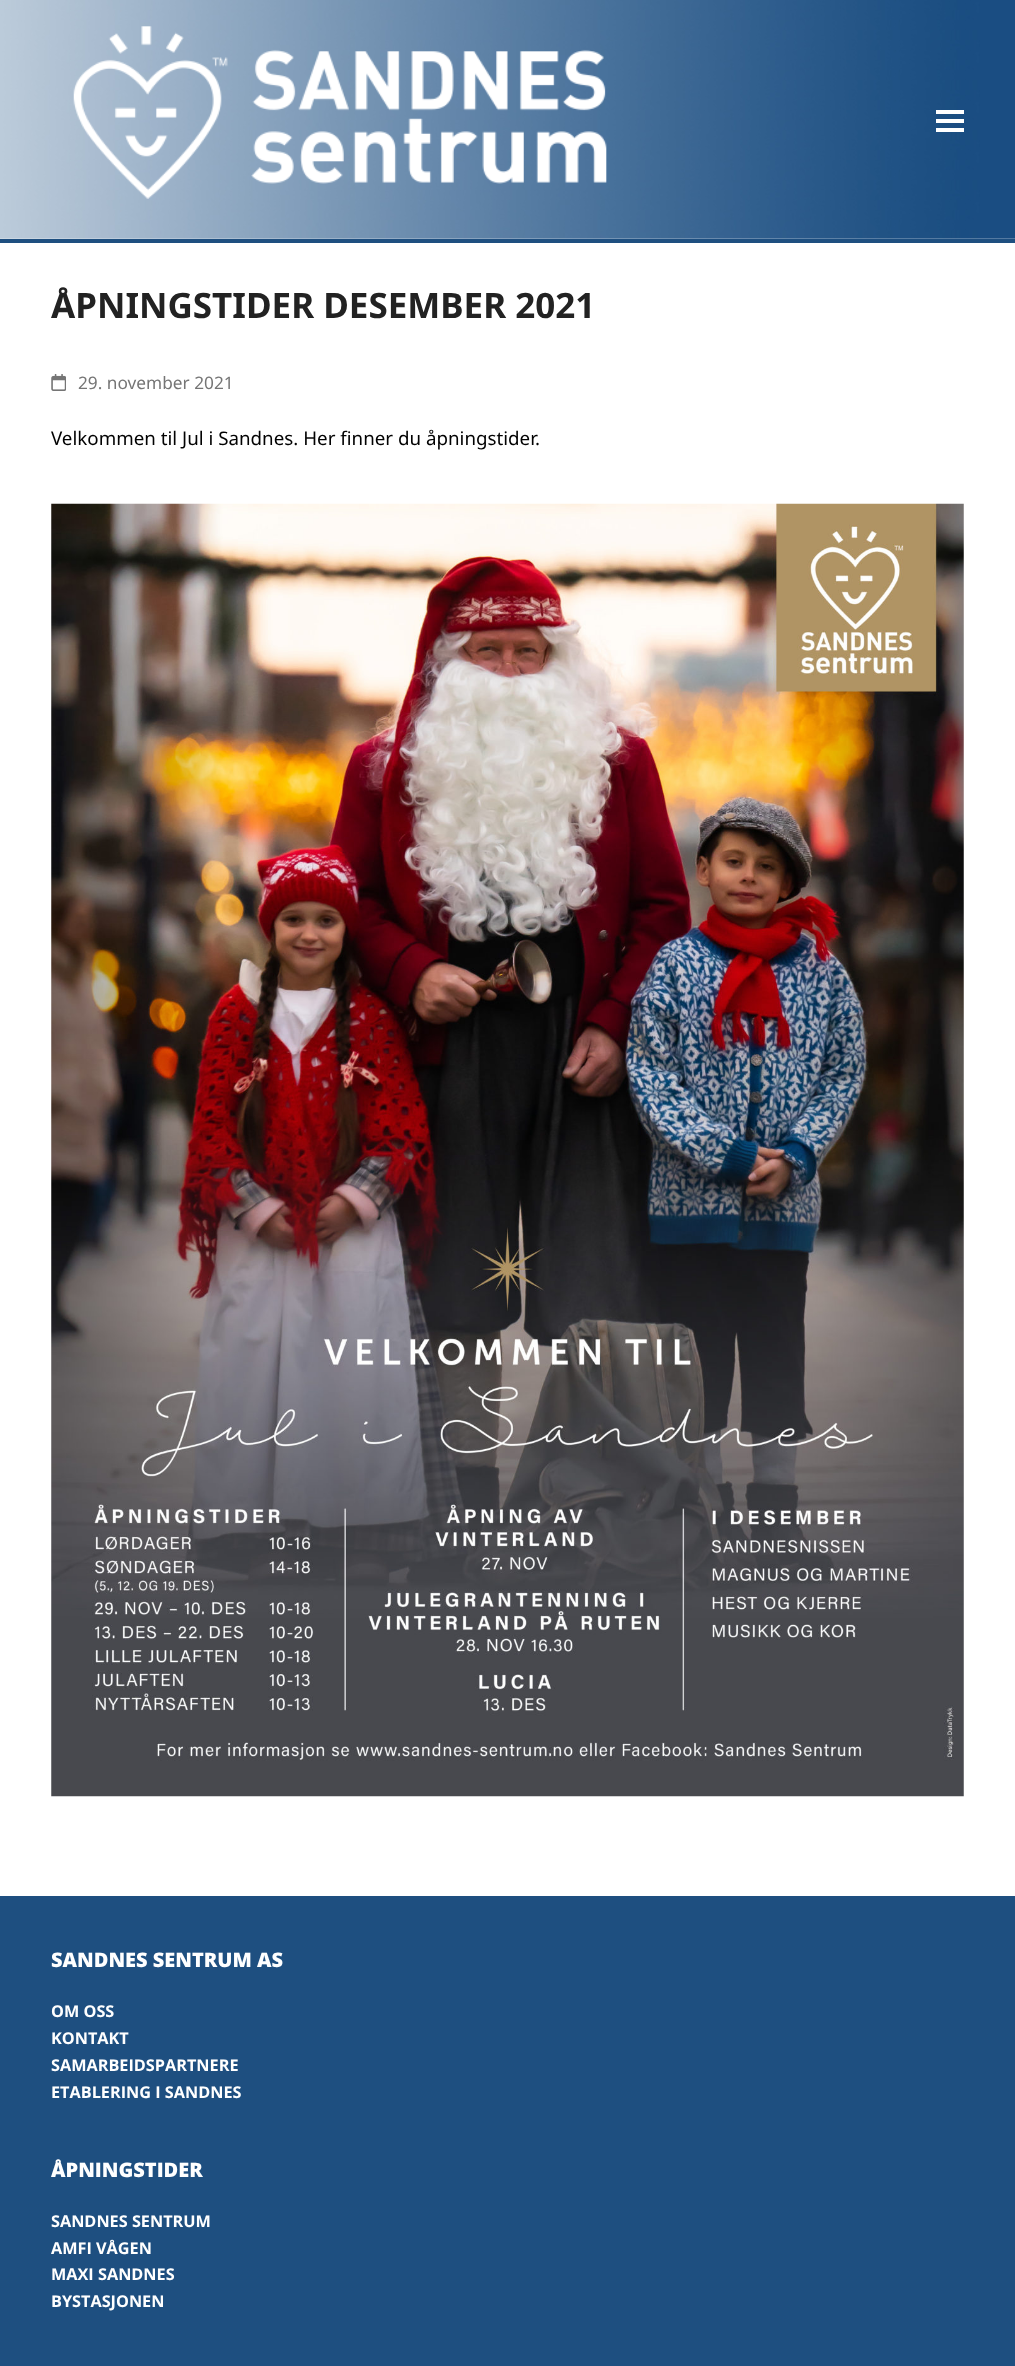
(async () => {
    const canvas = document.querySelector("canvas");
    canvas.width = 1015;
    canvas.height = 2366;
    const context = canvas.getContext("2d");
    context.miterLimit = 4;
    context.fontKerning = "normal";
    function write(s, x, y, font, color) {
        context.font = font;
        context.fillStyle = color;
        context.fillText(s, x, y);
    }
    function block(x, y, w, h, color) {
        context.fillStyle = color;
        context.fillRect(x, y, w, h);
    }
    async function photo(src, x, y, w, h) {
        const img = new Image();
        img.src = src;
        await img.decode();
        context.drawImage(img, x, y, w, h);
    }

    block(0, 0, 1015, 2366, "rgb(255, 255, 255)");
    await photo("media/1.png", 0, 0, 1015, 239);
    await photo("media/2.png", 73, 26, 534, 173);
    block(936, 119, 28, 4, "rgb(255, 255, 255)");
    block(936, 110, 28, 4, "rgb(255, 255, 255)");
    block(936, 128, 28, 4, "rgb(255, 255, 255)");
    block(0, 239, 1015, 4, "rgb(30, 79, 128)");
    write("ÅPNINGSTIDER DESEMBER 2021", 51, 318, "bold 35px Noto Sans", "rgb(34, 34, 34)");
    await photo("media/3.png", 51, 374, 15, 17);
    write("29. november 2021", 78, 389, "17.25px Noto Sans", "rgb(117, 117, 117)");
    write("Velkommen til Jul i Sandnes. Her finner du åpningstider.", 51, 445, "18.75px Noto Sans", "rgb(2, 2, 2)");
    await photo("media/4.png", 51, 503, 913, 1294);
    block(0, 1896, 1015, 470, "rgb(30, 79, 128)");
    write("SANDNES SENTRUM AS", 51, 1967, "800 20px Open Sans", "rgb(255, 255, 255)");
    write("OM OSS", 51, 2017, "bold 16.25px Open Sans", "rgb(255, 255, 255)");
    write("KONTAKT", 51, 2044, "bold 16.25px Open Sans", "rgb(255, 255, 255)");
    write("SAMARBEIDSPARTNERE", 51, 2071, "bold 16.25px Open Sans", "rgb(255, 255, 255)");
    write("ETABLERING I SANDNES", 51, 2098, "bold 16.25px Open Sans", "rgb(255, 255, 255)");
    write("ÅPNINGSTIDER", 51, 2177, "800 20px Open Sans", "rgb(255, 255, 255)");
    write("SANDNES SENTRUM", 51, 2227, "bold 16.25px Open Sans", "rgb(255, 255, 255)");
    write("AMFI VÅGEN", 51, 2254, "bold 16.25px Open Sans", "rgb(255, 255, 255)");
    write("MAXI SANDNES", 51, 2280, "bold 16.25px Open Sans", "rgb(255, 255, 255)");
    write("BYSTASJONEN", 51, 2307, "bold 16.25px Open Sans", "rgb(255, 255, 255)");
})();
